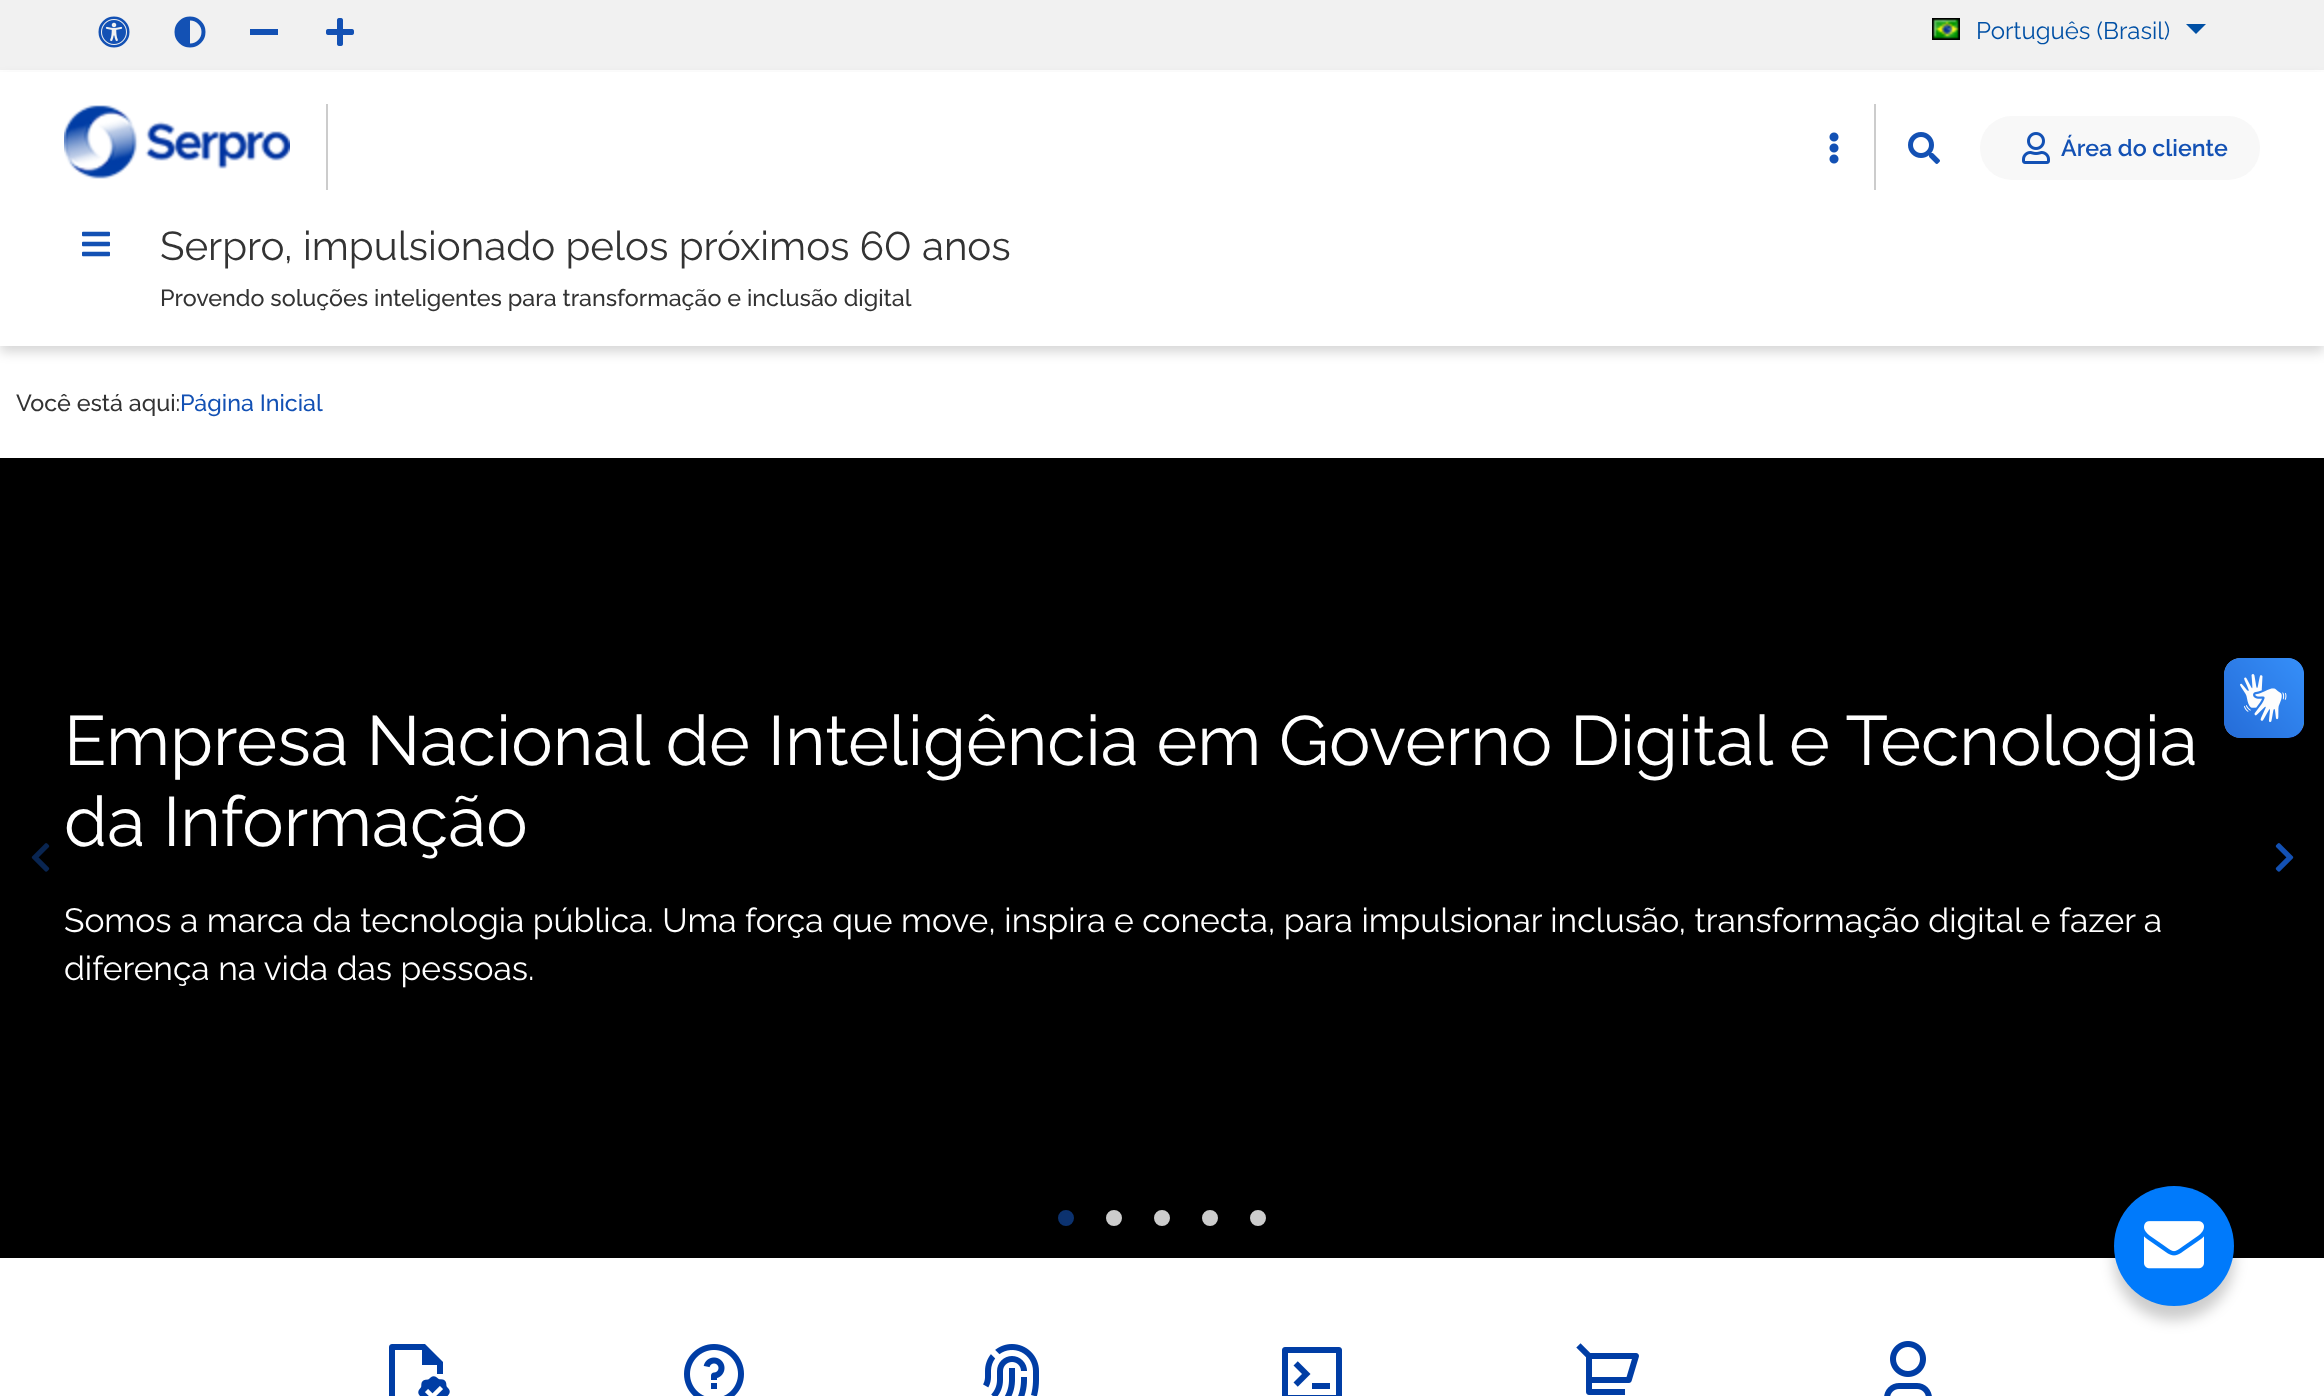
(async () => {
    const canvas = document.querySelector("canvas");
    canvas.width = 2324;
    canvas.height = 1396;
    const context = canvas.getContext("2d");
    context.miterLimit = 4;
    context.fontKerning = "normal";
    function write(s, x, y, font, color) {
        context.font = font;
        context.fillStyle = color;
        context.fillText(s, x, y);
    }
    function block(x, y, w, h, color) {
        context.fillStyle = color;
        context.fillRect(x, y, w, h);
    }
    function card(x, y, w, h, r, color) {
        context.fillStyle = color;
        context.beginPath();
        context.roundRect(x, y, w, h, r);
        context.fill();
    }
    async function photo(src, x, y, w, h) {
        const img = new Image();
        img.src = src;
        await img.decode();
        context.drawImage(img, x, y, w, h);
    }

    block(0, 0, 2324, 1396, "rgb(255, 255, 255)");
    block(0, 0, 2324, 70, "rgb(241, 241, 241)");
    await photo("media/1.png", 98, 16, 32, 32);
    await photo("media/2.png", 174, 16, 32, 32);
    block(250, 29, 28, 6, "rgb(19, 81, 180)");
    await photo("media/3.png", 326, 18, 28, 28);
    await photo("media/4.png", 1932, 18, 28, 22);
    write("Português (Brasil)", 1976, 39, "24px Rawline", "rgb(0, 80, 165)");
    context.beginPath();
    context.moveTo(2186, 24);
    context.lineTo(2206, 24);
    context.lineTo(2196, 34);
    context.closePath();
    context.fill();
    context.save();
    context.beginPath();
    context.moveTo(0, 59);
    context.lineTo(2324, 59);
    context.lineTo(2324, 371);
    context.lineTo(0, 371);
    context.closePath();
    context.moveTo(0, 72);
    context.lineTo(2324, 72);
    context.lineTo(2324, 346);
    context.lineTo(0, 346);
    context.closePath();
    context.clip("evenodd");
    context.fillStyle = "rgba(0, 0, 0, 0.16)";
    context.filter = "blur(6px)";
    context.beginPath();
    context.rect(0, 78, 2324, 274);
    context.fill();
    context.filter = "none";
    context.restore();
    await photo("media/5.png", 64, 105, 226, 74);
    block(326, 104, 2, 86, "rgb(204, 204, 204)");
    await photo("media/6.png", 1829, 132, 10, 32);
    block(1874, 104, 2, 86, "rgb(204, 204, 204)");
    await photo("media/7.png", 1908, 132, 32, 32);
    card(1980, 116, 280, 64, 32, "rgb(248, 248, 248)");
    await photo("media/8.png", 2022, 132, 28, 32);
    write("Área do cliente", 2061, 156, "600 23.25px Rawline", "rgb(19, 81, 180)");
    await photo("media/9.png", 82, 231, 28, 26);
    write("Serpro, impulsionado pelos próximos 60 anos", 160, 260, "40.3px Rawline", "rgb(51, 51, 51)");
    write("Provendo soluções inteligentes para transformação e inclusão digital", 160, 306, "500 23.3px Rawline", "rgb(51, 51, 51)");
    write("Você está aqui:", 16, 411, "500 23.3px Rawline", "rgb(51, 51, 51)");
    write("Página Inicial", 180, 411, "500 23.3px Rawline", "rgb(19, 81, 180)");
    block(0, 458, 2324, 800, "rgb(0, 0, 0)");
    await photo("media/10.png", 31, 843, 19, 29);
    write("Empresa Nacional de Inteligência em Governo Digital e Tecnologia", 64, 765, "69.65px Rawline", "rgb(255, 255, 255)");
    write("da Informação", 64, 846, "69.65px Rawline", "rgb(255, 255, 255)");
    write("Somos a marca da tecnologia pública. Uma força que move, inspira e conecta, para impulsionar inclusão, transformação digital e fazer a", 64, 932, "33.6px Rawline", "rgb(255, 255, 255)");
    write("diferença na vida das pessoas.", 64, 980, "33.6px Rawline", "rgb(255, 255, 255)");
    await photo("media/11.png", 2275, 843, 19, 29);
    context.fillStyle = "rgb(12, 50, 111)";
    context.beginPath();
    context.arc(1066, 1218, 7, 0, Math.PI * 2);
    context.fill();
    context.strokeStyle = "rgb(12, 50, 111)";
    context.lineWidth = 2;
    context.stroke();
    context.fillStyle = "rgb(204, 204, 204)";
    context.beginPath();
    context.arc(1114, 1218, 7, 0, Math.PI * 2);
    context.fill();
    context.strokeStyle = "rgb(204, 204, 204)";
    context.stroke();
    context.beginPath();
    context.arc(1162, 1218, 7, 0, Math.PI * 2);
    context.fill();
    context.stroke();
    context.beginPath();
    context.arc(1210, 1218, 7, 0, Math.PI * 2);
    context.fill();
    context.stroke();
    context.beginPath();
    context.arc(1258, 1218, 7, 0, Math.PI * 2);
    context.fill();
    context.stroke();
    await photo("media/12.png", 389, 1344, 61, 52);
    await photo("media/13.png", 684, 1344, 60, 52);
    await photo("media/14.png", 983, 1344, 56, 52);
    await photo("media/15.png", 1282, 1347, 60, 49);
    await photo("media/16.png", 1576, 1343, 63, 52);
    await photo("media/17.png", 1884, 1341, 48, 55);
    context.fillStyle = "rgba(0, 0, 0, 0.2)";
    context.filter = "blur(7px)";
    context.beginPath();
    context.roundRect(2114, 1200, 120, 120, 60);
    context.fill();
    context.filter = "none";
    context.fillStyle = "rgb(0, 122, 251)";
    context.beginPath();
    context.arc(2174, 1246, 60, 0, Math.PI * 2);
    context.fill();
    await photo("media/18.png", 2144, 1221, 60, 48);
    await photo("media/19.png", 2224, 658, 80, 80);
    await photo("media/20.png", 2224, 658, 80, 80);
})();
